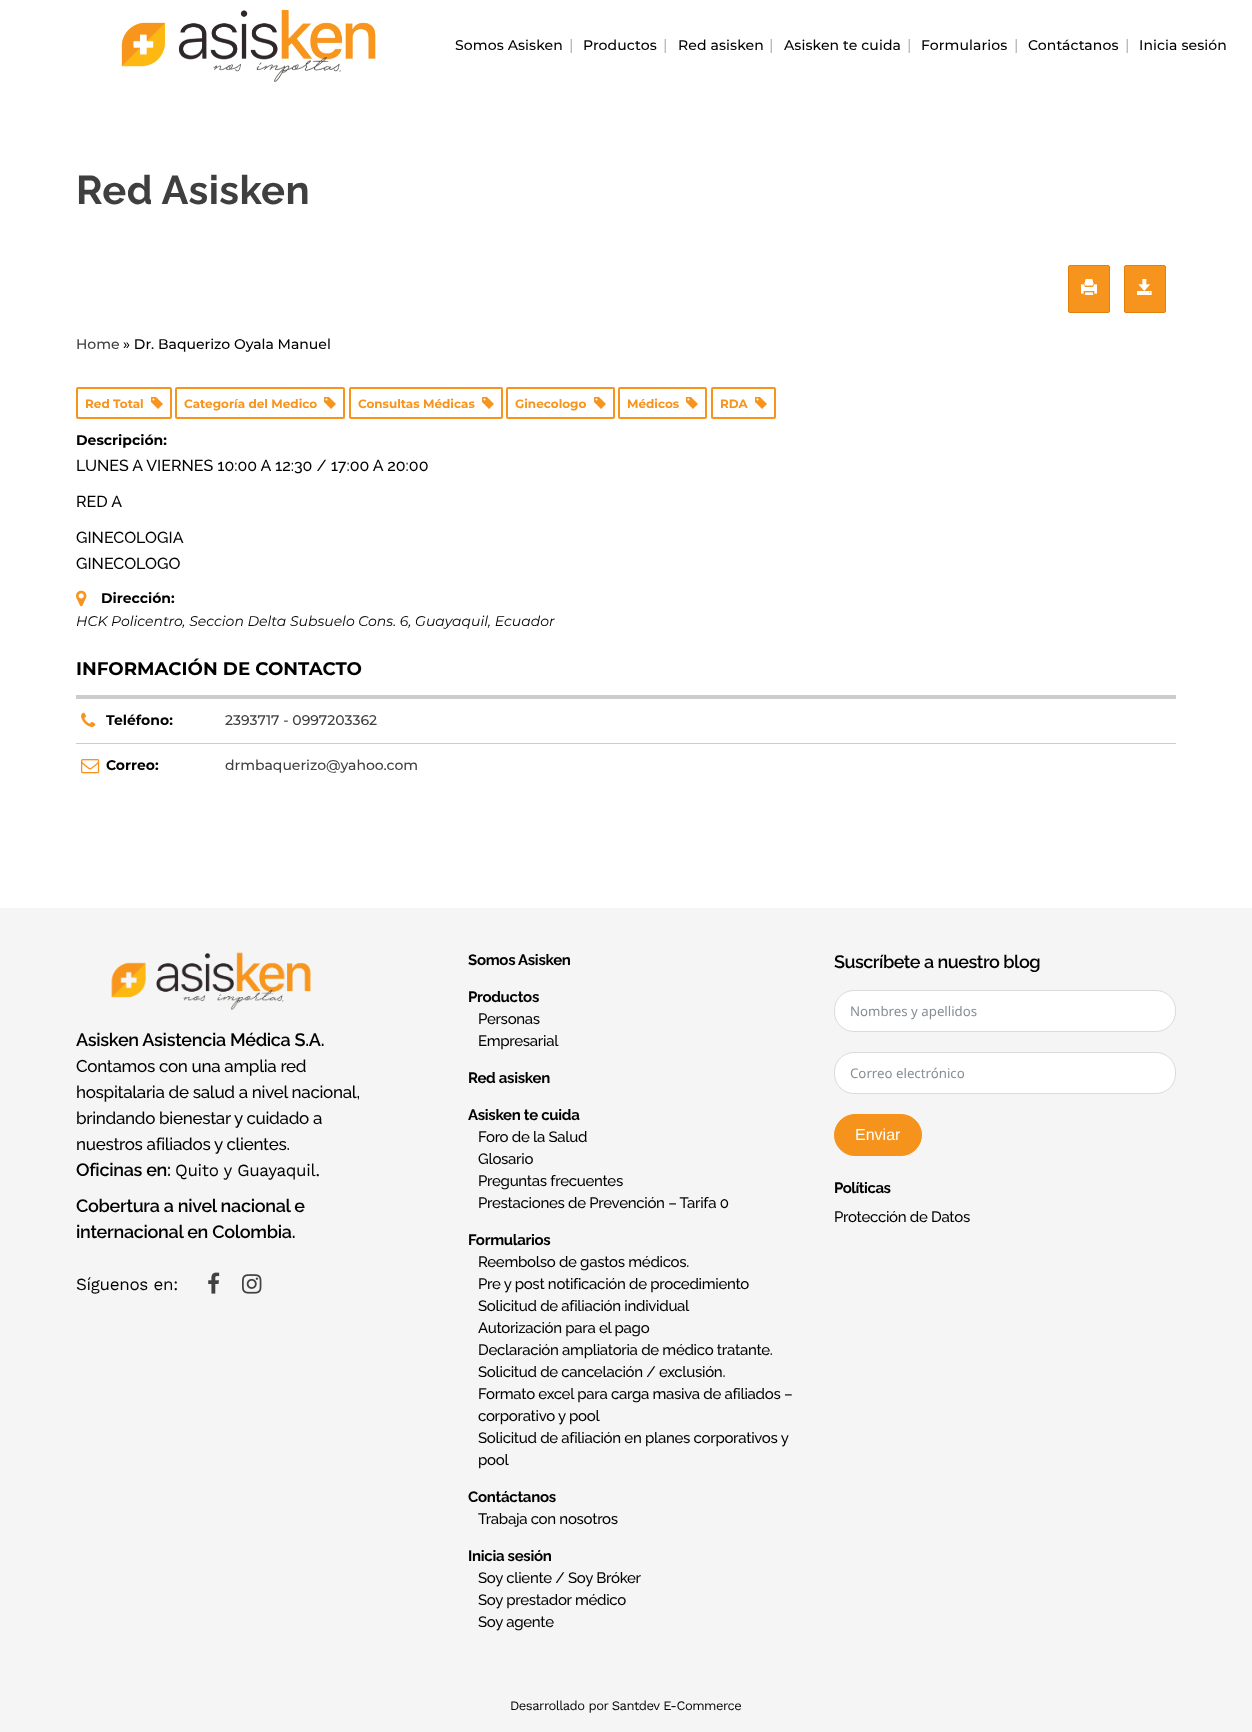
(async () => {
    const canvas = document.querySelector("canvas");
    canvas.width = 1252;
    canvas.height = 1732;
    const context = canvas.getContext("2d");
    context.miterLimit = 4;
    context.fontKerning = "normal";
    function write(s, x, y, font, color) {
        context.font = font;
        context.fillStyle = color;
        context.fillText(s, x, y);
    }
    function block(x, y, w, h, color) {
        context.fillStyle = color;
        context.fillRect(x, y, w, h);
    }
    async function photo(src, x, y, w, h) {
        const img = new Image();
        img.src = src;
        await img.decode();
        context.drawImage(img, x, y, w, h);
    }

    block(0, 0, 1252, 1732, "rgb(255, 255, 255)");
    await photo("media/1.png", 121, 9, 255, 73);
    context.letterSpacing = "0.1px";
    write("Somos Asisken", 455, 50, "500 14px Montserrat", "rgb(0, 0, 0)");
    context.letterSpacing = "0px";
    write("|", 569, 50, "15px Montserrat", "rgb(165, 165, 165)");
    context.letterSpacing = "0.1px";
    write("Productos", 583, 50, "500 14px Montserrat", "rgb(0, 0, 0)");
    context.letterSpacing = "0px";
    write("|", 663, 50, "15px Montserrat", "rgb(165, 165, 165)");
    context.letterSpacing = "0.1px";
    write("Red asisken", 678, 50, "500 14px Montserrat", "rgb(0, 0, 0)");
    context.letterSpacing = "0px";
    write("|", 769, 50, "15px Montserrat", "rgb(165, 165, 165)");
    context.letterSpacing = "0.1px";
    write("Asisken te cuida", 784, 50, "500 14px Montserrat", "rgb(0, 0, 0)");
    context.letterSpacing = "0px";
    write("|", 907, 50, "15px Montserrat", "rgb(165, 165, 165)");
    context.letterSpacing = "0.1px";
    write("Formularios", 921, 50, "500 14px Montserrat", "rgb(0, 0, 0)");
    context.letterSpacing = "0px";
    write("|", 1014, 50, "15px Montserrat", "rgb(165, 165, 165)");
    context.letterSpacing = "0.1px";
    write("Contáctanos", 1028, 50, "500 14px Montserrat", "rgb(0, 0, 0)");
    context.letterSpacing = "0px";
    write("|", 1125, 50, "15px Montserrat", "rgb(165, 165, 165)");
    context.letterSpacing = "0.1px";
    write("Inicia sesión", 1139, 50, "500 14px Montserrat", "rgb(0, 0, 0)");
    context.letterSpacing = "0.4px";
    write("Red Asisken", 76, 204, "bold 40px Raleway", "rgb(63, 63, 63)");
    context.fillStyle = "rgb(247, 148, 29)";
    context.beginPath();
    context.roundRect(1068.5, 265.5, 41, 47, 1.5);
    context.fill();
    context.strokeStyle = "rgb(227, 128, 9)";
    context.stroke();
    await photo("media/2.png", 1081, 279, 16, 16);
    context.beginPath();
    context.roundRect(1124.5, 265.5, 41, 47, 1.5);
    context.fill();
    context.stroke();
    await photo("media/3.png", 1137, 279, 15, 16);
    context.letterSpacing = "0px";
    write("Home", 76, 349, "500 14px Montserrat", "rgb(63, 63, 63)");
    write("» Dr. Baquerizo Oyala Manuel", 123, 349, "500 14px Montserrat", "rgb(0, 0, 0)");
    context.beginPath();
    context.roundRect(77, 388, 94, 30, 1);
    context.strokeStyle = "rgb(247, 148, 29)";
    context.lineWidth = 2;
    context.stroke();
    write("Red Total", 85, 408, "bold 12px Montserrat", "rgb(247, 148, 29)");
    await photo("media/4.png", 151, 397, 12, 12);
    context.beginPath();
    context.roundRect(176, 388, 168, 30, 1);
    context.stroke();
    write("Categoría del Medico", 184, 408, "bold 12px Montserrat", "rgb(247, 148, 29)");
    await photo("media/4.png", 324, 397, 12, 12);
    context.beginPath();
    context.roundRect(350, 388, 152, 30, 1);
    context.stroke();
    write("Consultas Médicas", 358, 408, "bold 12px Montserrat", "rgb(247, 148, 29)");
    await photo("media/4.png", 482, 397, 12, 12);
    context.beginPath();
    context.roundRect(507, 388, 107, 30, 1);
    context.stroke();
    write("Ginecologo", 515, 408, "bold 12px Montserrat", "rgb(247, 148, 29)");
    await photo("media/4.png", 594, 397, 12, 12);
    context.beginPath();
    context.roundRect(619, 388, 87, 30, 1);
    context.stroke();
    write("Médicos", 627, 408, "bold 12px Montserrat", "rgb(247, 148, 29)");
    await photo("media/4.png", 686, 397, 12, 12);
    context.beginPath();
    context.roundRect(712, 388, 63, 30, 1);
    context.stroke();
    write("RDA", 720, 408, "bold 12px Montserrat", "rgb(247, 148, 29)");
    await photo("media/4.png", 755, 397, 12, 12);
    write("Descripción:", 76, 445, "bold 14px Montserrat", "rgb(0, 0, 0)");
    write("LUNES A VIERNES 10:00 A 12:30 / 17:00 A 20:00", 76, 471, "500 16px Raleway", "rgb(0, 0, 0)");
    write("RED A", 76, 507, "500 16px Raleway", "rgb(0, 0, 0)");
    write("GINECOLOGIA", 76, 543, "500 16px Raleway", "rgb(0, 0, 0)");
    write("GINECOLOGO", 76, 569, "500 16px Raleway", "rgb(0, 0, 0)");
    await photo("media/5.png", 76, 590, 11, 17);
    write("Dirección:", 101, 603, "bold 14px Montserrat", "rgb(0, 0, 0)");
    write("HCK Policentro, Seccion Delta Subsuelo Cons. 6, Guayaquil, Ecuador", 76, 626, "italic 14px Montserrat", "rgb(0, 0, 0)");
    block(76, 695, 1100, 4, "rgb(204, 204, 204)");
    write("INFORMACIÓN DE CONTACTO", 76, 675, "bold 18.25px Montserrat", "rgb(0, 0, 0)");
    block(76, 743, 1100, 1, "rgb(204, 204, 204)");
    await photo("media/6.png", 81, 712, 15, 15);
    write("Teléfono:", 106, 725, "bold 14px Montserrat", "rgb(0, 0, 0)");
    write("2393717 - 0997203362", 225, 725, "500 14px Montserrat", "rgb(63, 63, 63)");
    await photo("media/7.png", 81, 759, 19, 15);
    write("Correo:", 106, 770, "bold 14px Montserrat", "rgb(0, 0, 0)");
    write("drmbaquerizo@yahoo.com", 225, 770, "500 14px Montserrat", "rgb(63, 63, 63)");
    block(0, 908, 1252, 824, "rgb(245, 245, 245)");
    await photo("media/8.png", 111, 952, 200, 58);
    context.letterSpacing = "-0.3px";
    write("Asisken Asistencia Médica S.A.", 76, 1046, "600 18px Raleway", "rgb(0, 0, 0)");
    write("Contamos con una amplia red", 76, 1072, "500 17px Raleway", "rgb(0, 0, 0)");
    write("hospitalaria de salud a nivel nacional,", 76, 1098, "500 17px Raleway", "rgb(0, 0, 0)");
    write("brindando bienestar y cuidado a", 76, 1124, "500 17px Raleway", "rgb(0, 0, 0)");
    write("nuestros afiliados y clientes.", 76, 1150, "500 17px Raleway", "rgb(0, 0, 0)");
    write("Oficinas en:", 76, 1176, "600 18px Raleway", "rgb(0, 0, 0)");
    write("Quito y Guayaquil.", 175, 1176, "17px Work Sans", "rgb(0, 0, 0)");
    write("Cobertura a nivel nacional e", 76, 1212, "600 18px Raleway", "rgb(0, 0, 0)");
    write("internacional en Colombia.", 76, 1238, "600 18px Raleway", "rgb(0, 0, 0)");
    write("Síguenos en:", 76, 1290, "17px Work Sans", "rgb(0, 0, 0)");
    await photo("media/9.png", 208, 1272, 12, 22);
    await photo("media/10.png", 242, 1274, 20, 20);
    write("Somos Asisken", 468, 965, "bold 15px Raleway", "rgb(0, 0, 0)");
    write("Productos", 468, 1002, "bold 15px Raleway", "rgb(0, 0, 0)");
    write("Personas", 478, 1024, "500 15px Raleway", "rgb(0, 0, 0)");
    write("Empresarial", 478, 1046, "500 15px Raleway", "rgb(0, 0, 0)");
    write("Red asisken", 468, 1083, "bold 15px Raleway", "rgb(0, 0, 0)");
    write("Asisken te cuida", 468, 1120, "bold 15px Raleway", "rgb(0, 0, 0)");
    write("Foro de la Salud", 478, 1142, "500 15px Raleway", "rgb(0, 0, 0)");
    write("Glosario", 478, 1164, "500 15px Raleway", "rgb(0, 0, 0)");
    write("Preguntas frecuentes", 478, 1186, "500 15px Raleway", "rgb(0, 0, 0)");
    write("Prestaciones de Prevención – Tarifa 0", 478, 1208, "500 15px Raleway", "rgb(0, 0, 0)");
    write("Formularios", 468, 1245, "bold 15px Raleway", "rgb(0, 0, 0)");
    write("Reembolso de gastos médicos.", 478, 1267, "500 15px Raleway", "rgb(0, 0, 0)");
    write("Pre y post notificación de procedimiento", 478, 1289, "500 15px Raleway", "rgb(0, 0, 0)");
    write("Solicitud de afiliación individual", 478, 1311, "500 15px Raleway", "rgb(0, 0, 0)");
    write("Autorización para el pago", 478, 1333, "500 15px Raleway", "rgb(0, 0, 0)");
    write("Declaración ampliatoria de médico tratante.", 478, 1355, "500 15px Raleway", "rgb(0, 0, 0)");
    write("Solicitud de cancelación / exclusión.", 478, 1377, "500 15px Raleway", "rgb(0, 0, 0)");
    write("Formato excel para carga masiva de afiliados –", 478, 1399, "500 15px Raleway", "rgb(0, 0, 0)");
    write("corporativo y pool", 478, 1421, "500 15px Raleway", "rgb(0, 0, 0)");
    write("Solicitud de afiliación en planes corporativos y", 478, 1443, "500 15px Raleway", "rgb(0, 0, 0)");
    write("pool", 478, 1465, "500 15px Raleway", "rgb(0, 0, 0)");
    write("Contáctanos", 468, 1502, "bold 15px Raleway", "rgb(0, 0, 0)");
    write("Trabaja con nosotros", 478, 1524, "500 15px Raleway", "rgb(0, 0, 0)");
    write("Inicia sesión", 468, 1561, "bold 15px Raleway", "rgb(0, 0, 0)");
    write("Soy cliente / Soy Bróker", 478, 1583, "500 15px Raleway", "rgb(0, 0, 0)");
    write("Soy prestador médico", 478, 1605, "500 15px Raleway", "rgb(0, 0, 0)");
    write("Soy agente", 478, 1627, "500 15px Raleway", "rgb(0, 0, 0)");
    context.letterSpacing = "-0.5px";
    write("Suscríbete a nuestro blog", 834, 968, "600 18px Raleway", "rgb(0, 0, 0)");
    context.fillStyle = "rgb(255, 255, 255)";
    context.beginPath();
    context.roundRect(834.5, 990.5, 341, 41, 19.5);
    context.fill();
    context.strokeStyle = "rgb(218, 219, 221)";
    context.lineWidth = 1;
    context.stroke();
    context.letterSpacing = "0px";
    write("Nombres y apellidos", 850, 1016, "13.25px Noto Sans", "rgb(134, 142, 150)");
    context.fillStyle = "rgb(255, 255, 255)";
    context.beginPath();
    context.roundRect(834.5, 1052.5, 341, 41, 19.5);
    context.fill();
    context.stroke();
    write("Correo electrónico", 850, 1078, "13.25px Noto Sans", "rgb(134, 142, 150)");
    context.fillStyle = "rgb(246, 147, 29)";
    context.beginPath();
    context.roundRect(834.5, 1114.5, 87, 41, 20.5);
    context.fill();
    context.strokeStyle = "rgb(246, 147, 29)";
    context.stroke();
    write("Enviar", 855, 1140, "16px Liberation Sans", "rgb(255, 255, 255)");
    context.letterSpacing = "-0.5px";
    write("Políticas", 834, 1193, "bold 15px Raleway", "rgb(0, 0, 0)");
    context.letterSpacing = "-0.3px";
    write("Protección de Datos", 834, 1222, "500 15px Raleway", "rgb(0, 0, 0)");
    context.letterSpacing = "-0.5px";
    write("Desarrollado por Santdev E-Commerce", 510, 1710, "13px Work Sans", "rgb(0, 0, 0)");
})();
